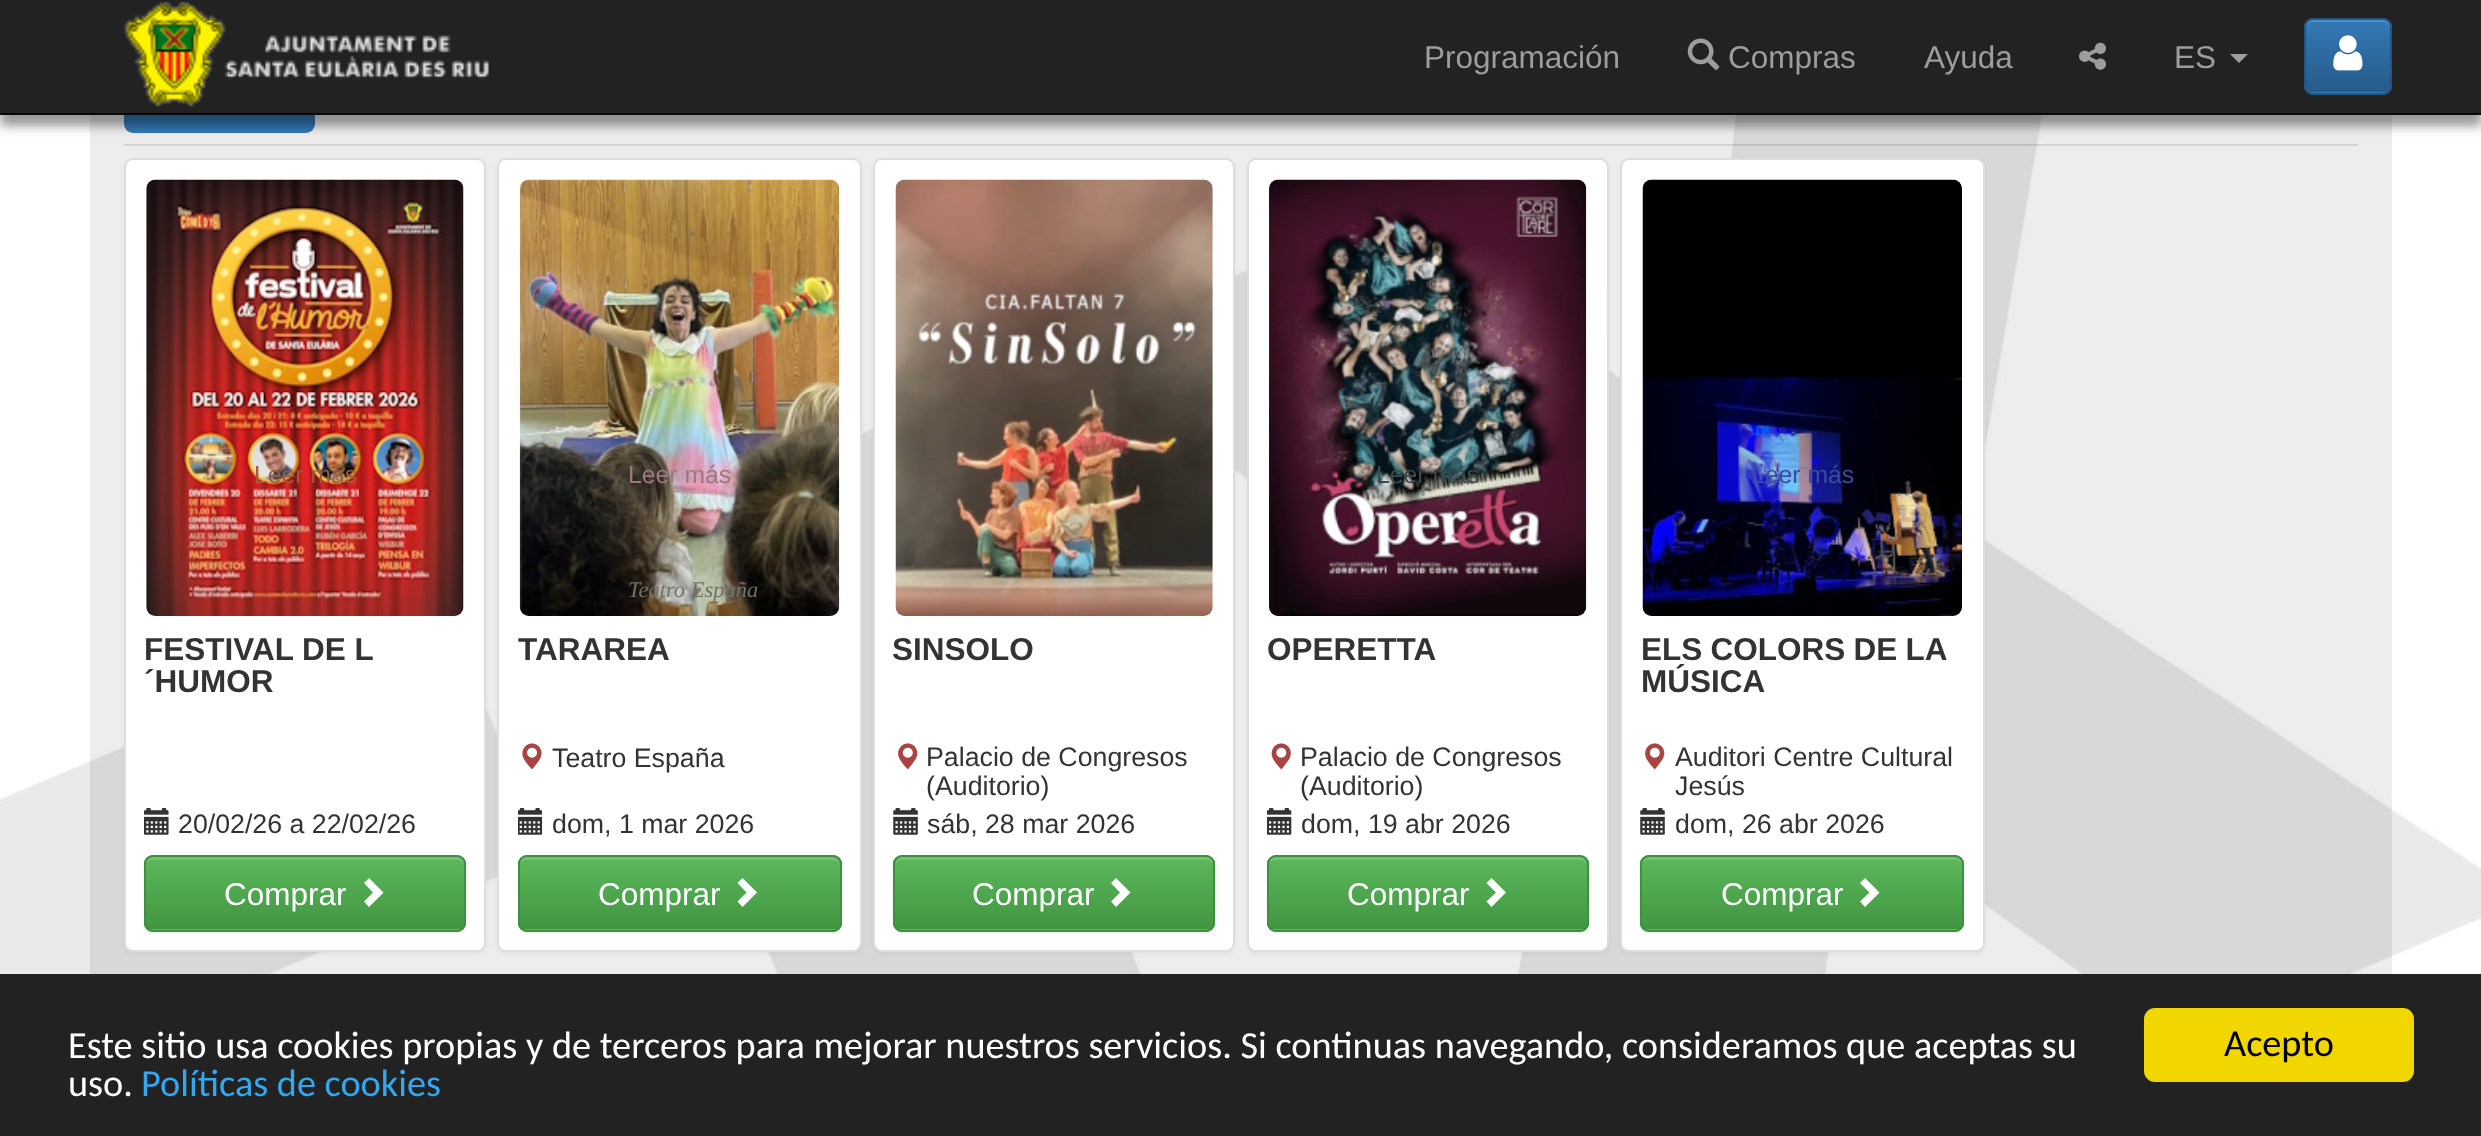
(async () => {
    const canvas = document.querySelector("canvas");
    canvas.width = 2481;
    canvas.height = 1136;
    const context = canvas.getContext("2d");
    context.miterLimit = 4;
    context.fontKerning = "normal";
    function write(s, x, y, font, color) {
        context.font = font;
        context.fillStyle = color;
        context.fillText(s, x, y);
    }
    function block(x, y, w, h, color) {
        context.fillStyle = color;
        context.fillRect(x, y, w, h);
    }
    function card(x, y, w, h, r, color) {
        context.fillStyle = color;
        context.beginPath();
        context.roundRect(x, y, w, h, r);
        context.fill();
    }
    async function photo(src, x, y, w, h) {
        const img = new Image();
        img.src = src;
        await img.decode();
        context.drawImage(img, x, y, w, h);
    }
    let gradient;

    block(0, 0, 2481, 1136, "rgb(255, 255, 255)");
    block(90, 115, 2302, 859, "rgb(233, 233, 233)");
    block(124, 144, 2234, 2, "rgb(200, 200, 200)");
    await photo("media/5.png", 0, 115, 2481, 859);
    card(124, 43, 191, 90, 9, "rgb(51, 122, 183)");
    context.fillStyle = "rgba(0, 0, 0, 0.4)";
    context.filter = "blur(5.5px)";
    context.beginPath();
    context.rect(0, 11, 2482, 115);
    context.fill();
    context.filter = "none";
    block(0, 0, 2481, 113, "rgb(34, 34, 34)");
    block(0, 113, 2481, 2, "rgb(8, 8, 8)");
    await photo("media/1.png", 123, 1, 367, 106);
    write("Programación", 1424, 68, "31.5px Liberation Sans", "rgb(157, 157, 157)");
    await photo("media/2.png", 1687, 38, 33, 32);
    write("Compras", 1728, 68, "31.5px Liberation Sans", "rgb(157, 157, 157)");
    write("Ayuda", 1924, 68, "31.5px Liberation Sans", "rgb(157, 157, 157)");
    await photo("media/3.png", 2079, 42, 27, 28);
    write("ES", 2174, 68, "31.5px Liberation Sans", "rgb(157, 157, 157)");
    context.beginPath();
    context.moveTo(2230, 54);
    context.lineTo(2248, 54);
    context.lineTo(2239, 63);
    context.closePath();
    context.fill();
    card(2304, 18, 88, 77, 9, "rgb(51, 122, 183)");
    context.save();
    context.beginPath();
    context.roundRect(2304, 18, 88, 77, 9);
    context.clip();
    gradient = context.createLinearGradient(2348, 20, 2348, 92);
    gradient.addColorStop(0, "rgb(51, 122, 183)");
    gradient.addColorStop(1, "rgb(38, 90, 136)");
    context.fillStyle = gradient;
    context.fillRect(2304, 20, 88, 72);
    context.restore();
    context.fillStyle = "rgba(255, 255, 255, 0.15)";
    context.beginPath();
    context.moveTo(2313, 22);
    context.lineTo(2383, 22);
    context.bezierCurveTo(2386, 22, 2390, 26, 2390, 29);
    context.bezierCurveTo(2390, 17, 2381, 20, 2371, 20);
    context.lineTo(2325, 20);
    context.bezierCurveTo(2315, 20, 2306, 17, 2306, 29);
    context.bezierCurveTo(2306, 26, 2309, 22, 2313, 22);
    context.closePath();
    context.fill();
    context.beginPath();
    context.roundRect(2305, 19, 86, 75, 8);
    context.strokeStyle = "rgb(36, 85, 128)";
    context.lineWidth = 2;
    context.stroke();
    await photo("media/4.png", 2333, 35, 30, 36);
    context.fillStyle = "rgba(0, 0, 0, 0.05)";
    context.filter = "blur(2px)";
    context.beginPath();
    context.roundRect(124, 160, 362, 794, 9);
    context.fill();
    context.filter = "none";
    context.fillStyle = "rgb(255, 255, 255)";
    context.beginPath();
    context.roundRect(125, 159, 360, 792, 8);
    context.fill();
    context.strokeStyle = "rgb(221, 221, 221)";
    context.stroke();
    await photo("media/6.png", 146, 179, 318, 437);
    write("Leer más", 254, 483, "24.75px Liberation Sans", "rgb(157, 92, 64)");
    write("FESTIVAL DE L", 144, 660, "bold 31.5px Liberation Sans", "rgb(51, 51, 51)");
    write("´HUMOR", 144, 692, "bold 31.5px Liberation Sans", "rgb(51, 51, 51)");
    await photo("media/7.png", 144, 808, 25, 27);
    write("20/02/26 a 22/02/26", 178, 833, "26.75px Liberation Sans", "rgb(51, 51, 51)");
    context.fillStyle = "rgba(0, 0, 0, 0.07)";
    context.filter = "blur(1px)";
    context.beginPath();
    context.roundRect(144, 857, 322, 77, 9);
    context.fill();
    context.filter = "none";
    card(144, 855, 322, 77, 9, "rgb(92, 184, 92)");
    context.save();
    context.beginPath();
    context.roundRect(144, 855, 322, 77, 9);
    context.clip();
    gradient = context.createLinearGradient(305, 857, 305, 929);
    gradient.addColorStop(0, "rgb(92, 184, 92)");
    gradient.addColorStop(1, "rgb(65, 150, 65)");
    context.fillStyle = gradient;
    context.fillRect(144, 857, 322, 72);
    context.restore();
    context.fillStyle = "rgba(255, 255, 255, 0.15)";
    context.beginPath();
    context.moveTo(153, 860);
    context.lineTo(457, 860);
    context.bezierCurveTo(460, 860, 464, 863, 464, 866);
    context.lineTo(464, 864);
    context.bezierCurveTo(464, 860, 461, 857, 457, 857);
    context.lineTo(153, 857);
    context.bezierCurveTo(149, 857, 146, 860, 146, 864);
    context.lineTo(146, 866);
    context.bezierCurveTo(146, 863, 149, 860, 153, 860);
    context.closePath();
    context.fill();
    context.beginPath();
    context.roundRect(145, 856, 320, 75, 8);
    context.strokeStyle = "rgb(62, 143, 62)";
    context.stroke();
    write("Comprar", 224, 905, "31.5px Liberation Sans", "rgb(255, 255, 255)");
    context.beginPath();
    context.moveTo(383.5, 892.5);
    context.lineTo(369, 907);
    context.lineTo(364, 901.5);
    context.lineTo(373, 892.5);
    context.lineTo(364, 883);
    context.lineTo(369, 878);
    context.closePath();
    context.fill();
    context.fillStyle = "rgba(0, 0, 0, 0.05)";
    context.filter = "blur(2px)";
    context.beginPath();
    context.roundRect(497, 160, 365, 794, 9);
    context.fill();
    context.filter = "none";
    context.fillStyle = "rgb(255, 255, 255)";
    context.beginPath();
    context.roundRect(498, 159, 363, 792, 8);
    context.fill();
    context.strokeStyle = "rgb(221, 221, 221)";
    context.stroke();
    await photo("media/8.png", 519, 179, 321, 437);
    write("Leer más", 628, 483, "24.75px Liberation Sans", "rgb(154, 121, 130)");
    write("Teatro España", 628, 597, "italic 22.5px Liberation Serif", "rgb(114, 113, 101)");
    write("TARAREA", 518, 660, "bold 31.5px Liberation Sans", "rgb(51, 51, 51)");
    await photo("media/9.png", 522, 743, 20, 27);
    write("Teatro España", 552, 767, "26.75px Liberation Sans", "rgb(51, 51, 51)");
    await photo("media/10.png", 518, 808, 25, 27);
    write("dom, 1 mar 2026", 552, 833, "26.75px Liberation Sans", "rgb(51, 51, 51)");
    context.fillStyle = "rgba(0, 0, 0, 0.07)";
    context.filter = "blur(1px)";
    context.beginPath();
    context.roundRect(518, 857, 324, 77, 9);
    context.fill();
    context.filter = "none";
    card(518, 855, 324, 77, 9, "rgb(92, 184, 92)");
    context.save();
    context.beginPath();
    context.roundRect(518, 855, 324, 77, 9);
    context.clip();
    gradient = context.createLinearGradient(680, 857, 680, 929);
    gradient.addColorStop(0, "rgb(92, 184, 92)");
    gradient.addColorStop(1, "rgb(65, 150, 65)");
    context.fillStyle = gradient;
    context.fillRect(518, 857, 324, 72);
    context.restore();
    context.fillStyle = "rgba(255, 255, 255, 0.15)";
    context.beginPath();
    context.moveTo(526, 860);
    context.lineTo(832, 860);
    context.bezierCurveTo(836, 860, 839, 863, 839, 866);
    context.lineTo(839, 864);
    context.bezierCurveTo(839, 860, 836, 857, 832, 857);
    context.lineTo(527, 857);
    context.bezierCurveTo(523, 857, 520, 860, 520, 864);
    context.lineTo(520, 866);
    context.bezierCurveTo(520, 863, 523, 860, 526, 860);
    context.closePath();
    context.fill();
    context.beginPath();
    context.roundRect(519, 856, 322, 75, 8);
    context.strokeStyle = "rgb(62, 143, 62)";
    context.stroke();
    write("Comprar", 598, 905, "31.5px Liberation Sans", "rgb(255, 255, 255)");
    context.beginPath();
    context.moveTo(757, 892.5);
    context.lineTo(742.5, 907);
    context.lineTo(737.5, 901.5);
    context.lineTo(746.5, 892.5);
    context.lineTo(737.5, 883);
    context.lineTo(742.5, 878);
    context.closePath();
    context.fill();
    context.fillStyle = "rgba(0, 0, 0, 0.05)";
    context.filter = "blur(2px)";
    context.beginPath();
    context.roundRect(873, 160, 362, 794, 9);
    context.fill();
    context.filter = "none";
    context.fillStyle = "rgb(255, 255, 255)";
    context.beginPath();
    context.roundRect(874, 159, 360, 792, 8);
    context.fill();
    context.strokeStyle = "rgb(221, 221, 221)";
    context.stroke();
    await photo("media/11.png", 895, 179, 318, 437);
    write("SINSOLO", 892, 660, "bold 31.5px Liberation Sans", "rgb(51, 51, 51)");
    await photo("media/12.png", 898, 743, 20, 27);
    write("Palacio de Congresos", 926, 766, "26.75px Liberation Sans", "rgb(51, 51, 51)");
    write("(Auditorio)", 926, 795, "26.75px Liberation Sans", "rgb(51, 51, 51)");
    await photo("media/13.png", 893, 808, 25, 27);
    write("sáb, 28 mar 2026", 927, 833, "26.75px Liberation Sans", "rgb(51, 51, 51)");
    context.fillStyle = "rgba(0, 0, 0, 0.07)";
    context.filter = "blur(1px)";
    context.beginPath();
    context.roundRect(893, 857, 322, 77, 9);
    context.fill();
    context.filter = "none";
    card(893, 855, 322, 77, 9, "rgb(92, 184, 92)");
    context.save();
    context.beginPath();
    context.roundRect(893, 855, 322, 77, 9);
    context.clip();
    gradient = context.createLinearGradient(1054, 857, 1054, 929);
    gradient.addColorStop(0, "rgb(92, 184, 92)");
    gradient.addColorStop(1, "rgb(65, 150, 65)");
    context.fillStyle = gradient;
    context.fillRect(893, 857, 322, 72);
    context.restore();
    context.fillStyle = "rgba(255, 255, 255, 0.15)";
    context.beginPath();
    context.moveTo(902, 860);
    context.lineTo(1206, 860);
    context.bezierCurveTo(1210, 860, 1213, 863, 1213, 866);
    context.lineTo(1213, 864);
    context.bezierCurveTo(1213, 860, 1210, 857, 1206, 857);
    context.lineTo(903, 857);
    context.bezierCurveTo(899, 857, 896, 860, 896, 864);
    context.lineTo(896, 866);
    context.bezierCurveTo(896, 863, 899, 860, 902, 860);
    context.closePath();
    context.fill();
    context.beginPath();
    context.roundRect(894, 856, 320, 75, 8);
    context.strokeStyle = "rgb(62, 143, 62)";
    context.stroke();
    write("Comprar", 972, 905, "31.5px Liberation Sans", "rgb(255, 255, 255)");
    context.beginPath();
    context.moveTo(1130.5, 892.5);
    context.lineTo(1116, 907);
    context.lineTo(1111, 901.5);
    context.lineTo(1120, 892.5);
    context.lineTo(1111, 883);
    context.lineTo(1116, 878);
    context.closePath();
    context.fill();
    context.fillStyle = "rgba(0, 0, 0, 0.05)";
    context.filter = "blur(2px)";
    context.beginPath();
    context.roundRect(1247, 160, 362, 794, 9);
    context.fill();
    context.filter = "none";
    context.fillStyle = "rgb(255, 255, 255)";
    context.beginPath();
    context.roundRect(1248, 159, 360, 792, 8);
    context.fill();
    context.strokeStyle = "rgb(221, 221, 221)";
    context.stroke();
    await photo("media/14.png", 1269, 179, 318, 437);
    write("Leer más", 1376, 483, "24.75px Liberation Sans", "rgb(60, 73, 74)");
    write("OPERETTA", 1267, 660, "bold 31.5px Liberation Sans", "rgb(51, 51, 51)");
    await photo("media/15.png", 1271, 743, 20, 27);
    write("Palacio de Congresos", 1300, 766, "26.75px Liberation Sans", "rgb(51, 51, 51)");
    write("(Auditorio)", 1300, 795, "26.75px Liberation Sans", "rgb(51, 51, 51)");
    await photo("media/16.png", 1267, 808, 25, 27);
    write("dom, 19 abr 2026", 1301, 833, "26.75px Liberation Sans", "rgb(51, 51, 51)");
    context.fillStyle = "rgba(0, 0, 0, 0.07)";
    context.filter = "blur(1px)";
    context.beginPath();
    context.roundRect(1267, 857, 322, 77, 9);
    context.fill();
    context.filter = "none";
    card(1267, 855, 322, 77, 9, "rgb(92, 184, 92)");
    context.save();
    context.beginPath();
    context.roundRect(1267, 855, 322, 77, 9);
    context.clip();
    gradient = context.createLinearGradient(1428, 857, 1428, 929);
    gradient.addColorStop(0, "rgb(92, 184, 92)");
    gradient.addColorStop(1, "rgb(65, 150, 65)");
    context.fillStyle = gradient;
    context.fillRect(1267, 857, 322, 72);
    context.restore();
    context.fillStyle = "rgba(255, 255, 255, 0.15)";
    context.beginPath();
    context.moveTo(1276, 860);
    context.lineTo(1580, 860);
    context.bezierCurveTo(1583, 860, 1586, 863, 1586, 866);
    context.lineTo(1586, 864);
    context.bezierCurveTo(1586, 860, 1583, 857, 1579, 857);
    context.lineTo(1276, 857);
    context.bezierCurveTo(1272, 857, 1269, 860, 1269, 864);
    context.lineTo(1269, 866);
    context.bezierCurveTo(1269, 863, 1272, 860, 1276, 860);
    context.closePath();
    context.fill();
    context.beginPath();
    context.roundRect(1268, 856, 320, 75, 8);
    context.strokeStyle = "rgb(62, 143, 62)";
    context.stroke();
    write("Comprar", 1347, 905, "31.5px Liberation Sans", "rgb(255, 255, 255)");
    context.beginPath();
    context.moveTo(1506, 892.5);
    context.lineTo(1491.5, 907);
    context.lineTo(1486.5, 901.5);
    context.lineTo(1496, 892.5);
    context.lineTo(1486.5, 883);
    context.lineTo(1491.5, 878);
    context.closePath();
    context.fill();
    context.fillStyle = "rgba(0, 0, 0, 0.05)";
    context.filter = "blur(2px)";
    context.beginPath();
    context.roundRect(1620, 160, 365, 794, 9);
    context.fill();
    context.filter = "none";
    context.fillStyle = "rgb(255, 255, 255)";
    context.beginPath();
    context.roundRect(1621, 159, 363, 792, 8);
    context.fill();
    context.strokeStyle = "rgb(221, 221, 221)";
    context.stroke();
    await photo("media/17.png", 1642, 179, 320, 437);
    write("Leer más", 1751, 483, "24.75px Liberation Sans", "rgb(57, 76, 157)");
    context.wordSpacing = "-0.5px";
    write("ELS COLORS DE LA", 1641, 660, "bold 31.5px Liberation Sans", "rgb(51, 51, 51)");
    context.wordSpacing = "0px";
    write("MÚSICA", 1641, 692, "bold 31.5px Liberation Sans", "rgb(51, 51, 51)");
    await photo("media/12.png", 1645, 743, 20, 27);
    write("Auditori Centre Cultural", 1675, 766, "26.75px Liberation Sans", "rgb(51, 51, 51)");
    write("Jesús", 1675, 795, "26.75px Liberation Sans", "rgb(51, 51, 51)");
    await photo("media/13.png", 1640, 808, 25, 27);
    write("dom, 26 abr 2026", 1675, 833, "26.75px Liberation Sans", "rgb(51, 51, 51)");
    context.fillStyle = "rgba(0, 0, 0, 0.07)";
    context.filter = "blur(1px)";
    context.beginPath();
    context.roundRect(1640, 857, 324, 77, 9);
    context.fill();
    context.filter = "none";
    card(1640, 855, 324, 77, 9, "rgb(92, 184, 92)");
    context.save();
    context.beginPath();
    context.roundRect(1640, 855, 324, 77, 9);
    context.clip();
    gradient = context.createLinearGradient(1802, 857, 1802, 929);
    gradient.addColorStop(0, "rgb(92, 184, 92)");
    gradient.addColorStop(1, "rgb(65, 150, 65)");
    context.fillStyle = gradient;
    context.fillRect(1640, 857, 324, 72);
    context.restore();
    context.fillStyle = "rgba(255, 255, 255, 0.15)";
    context.beginPath();
    context.moveTo(1649, 860);
    context.lineTo(1955, 860);
    context.bezierCurveTo(1959, 860, 1962, 863, 1962, 866);
    context.lineTo(1962, 864);
    context.bezierCurveTo(1962, 860, 1959, 857, 1955, 857);
    context.lineTo(1650, 857);
    context.bezierCurveTo(1646, 857, 1643, 860, 1643, 863);
    context.bezierCurveTo(1644, 861, 1647, 860, 1649, 860);
    context.closePath();
    context.fill();
    context.beginPath();
    context.roundRect(1641, 856, 322, 75, 8);
    context.strokeStyle = "rgb(62, 143, 62)";
    context.stroke();
    write("Comprar", 1721, 905, "31.5px Liberation Sans", "rgb(255, 255, 255)");
    context.beginPath();
    context.moveTo(1879.5, 892.5);
    context.lineTo(1865, 907);
    context.lineTo(1860, 901.5);
    context.lineTo(1869.5, 892.5);
    context.lineTo(1860, 883);
    context.lineTo(1865, 878);
    context.closePath();
    context.fill();
    block(0, 974, 2481, 162, "rgb(34, 34, 34)");
    write("Este sitio usa cookies propias y de terceros para mejorar nuestros servicios. Si continuas navegando, consideramos que aceptas su", 68, 1058, "38.25px Carlito", "rgb(255, 255, 255)");
    write("uso.", 68, 1096, "38.25px Carlito", "rgb(255, 255, 255)");
    write("Políticas de cookies", 141, 1096, "38.25px Carlito", "rgb(49, 168, 240)");
    card(2144, 1008, 270, 74, 11, "rgb(241, 214, 0)");
    write("Acepto", 2224, 1056, "38.25px Carlito", "rgb(0, 0, 0)");
})();
